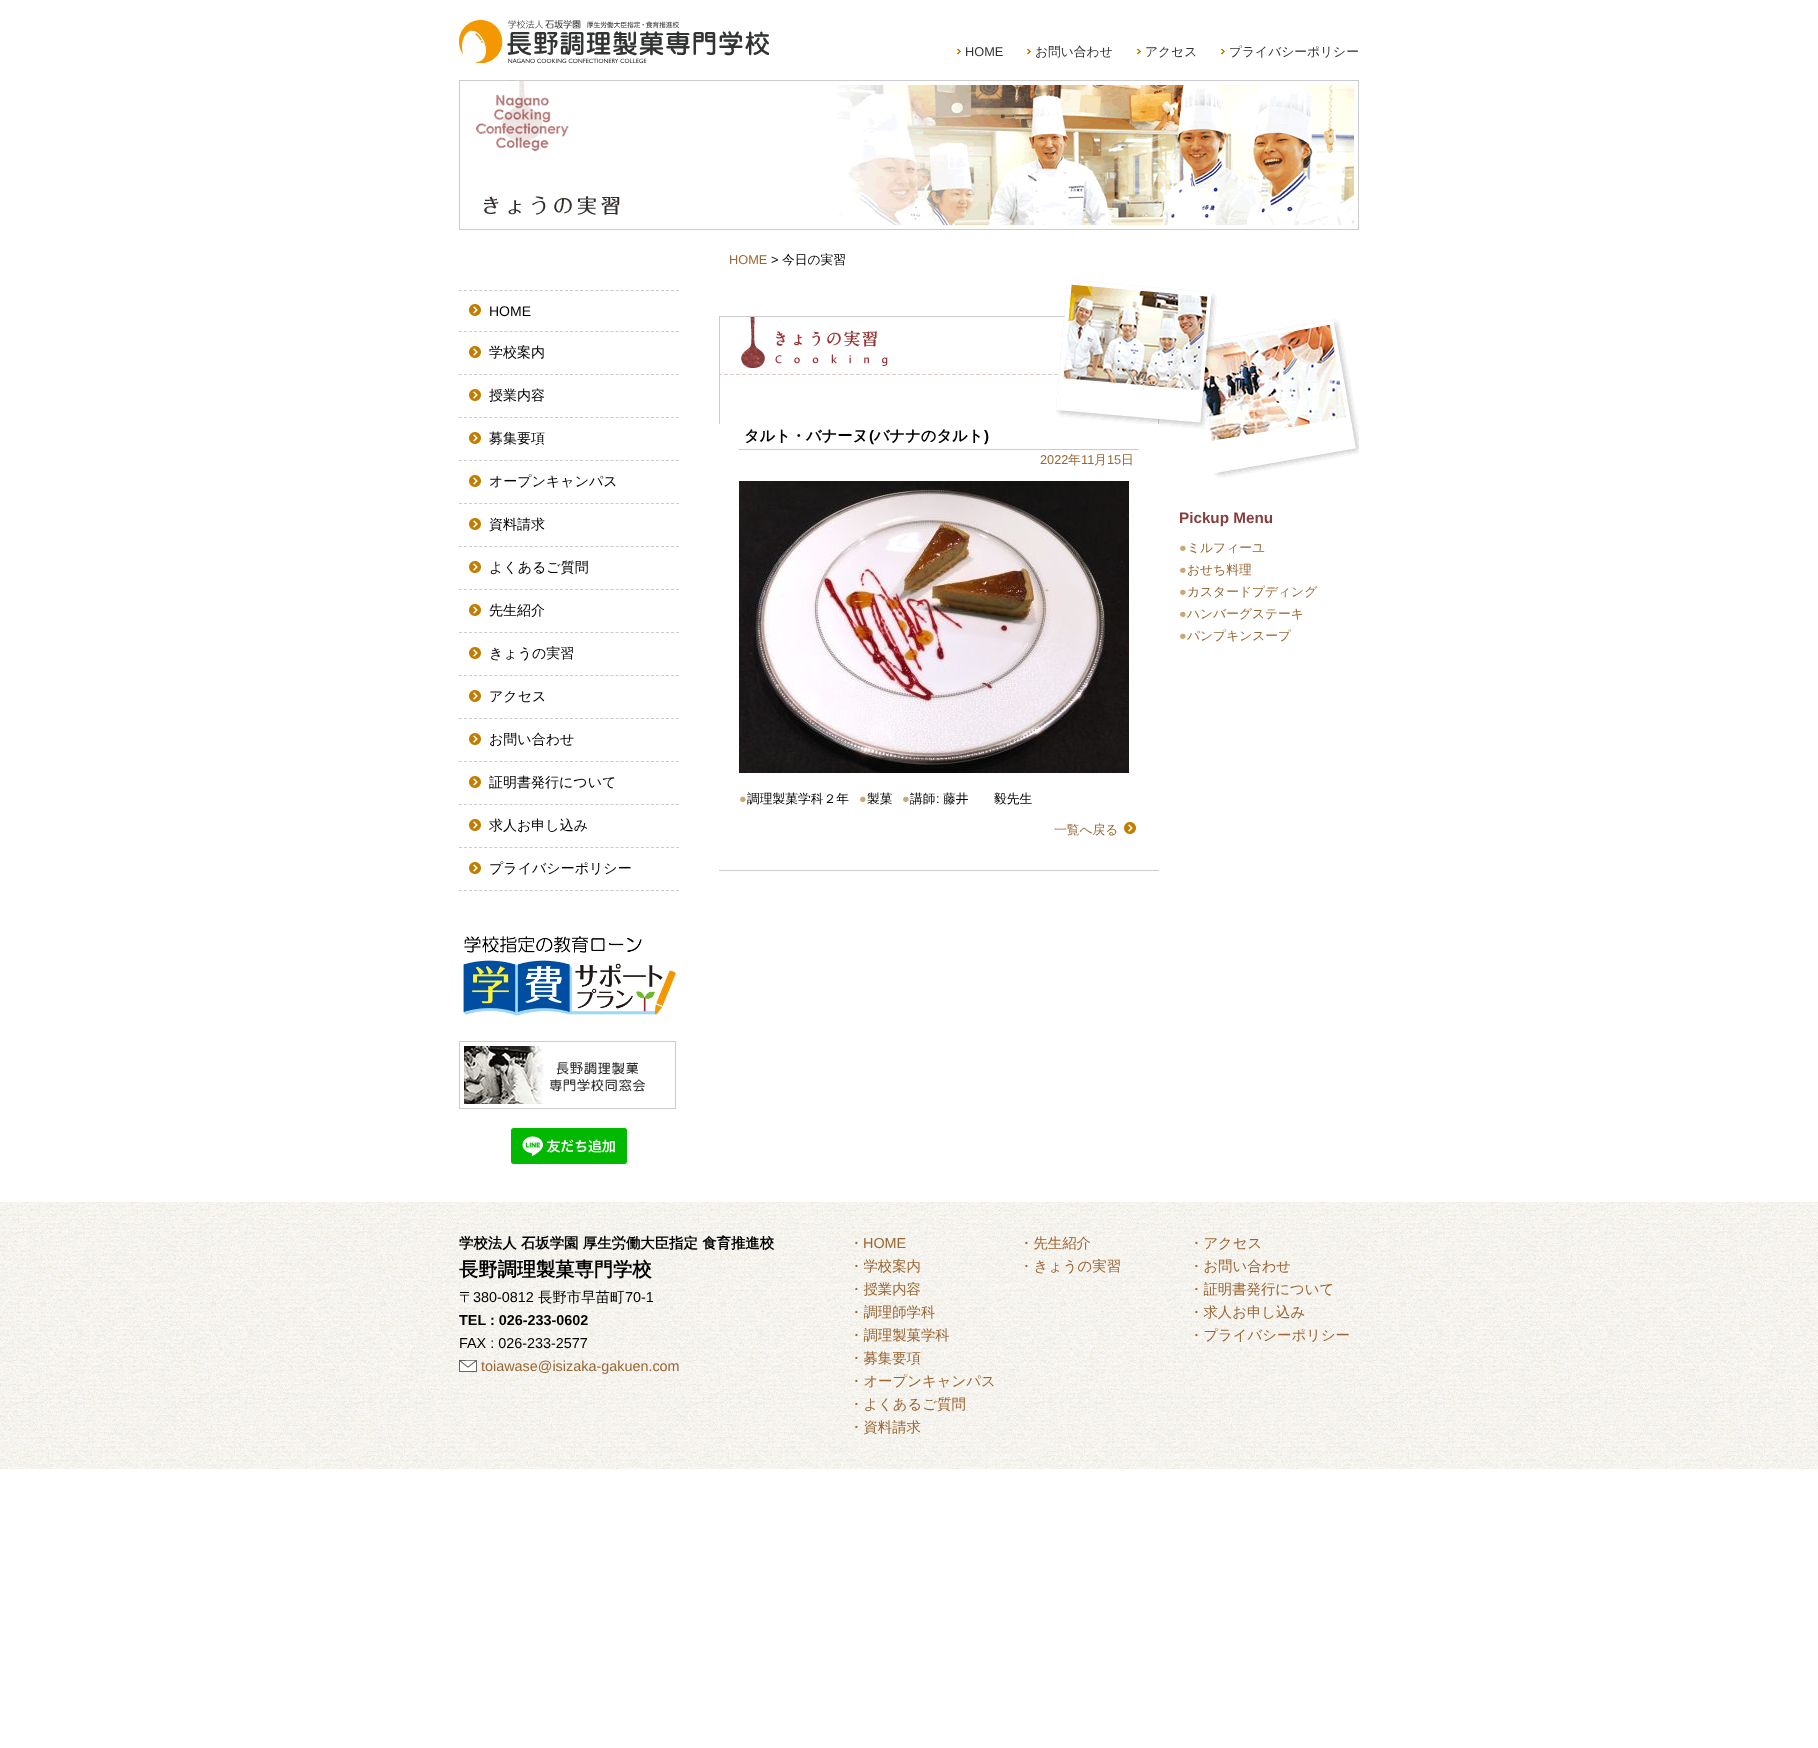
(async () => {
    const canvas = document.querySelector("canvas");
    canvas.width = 1818;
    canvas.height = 1748;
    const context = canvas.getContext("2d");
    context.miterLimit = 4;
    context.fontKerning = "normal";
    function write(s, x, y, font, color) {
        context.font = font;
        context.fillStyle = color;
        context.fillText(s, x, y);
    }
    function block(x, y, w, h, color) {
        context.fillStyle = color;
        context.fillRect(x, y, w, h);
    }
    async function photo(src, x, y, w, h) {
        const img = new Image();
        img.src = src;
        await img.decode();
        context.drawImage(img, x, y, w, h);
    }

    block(0, 0, 1818, 1748, "rgb(255, 255, 255)");
    await photo("media/1.png", 459, 20, 310, 43);
    await photo("media/2.png", 957, 49, 4, 5);
    write("HOME", 965, 56, "12.75px Liberation Sans", "rgb(51, 51, 51)");
    await photo("media/2.png", 1027, 49, 4, 5);
    write("お問い合わせ", 1035, 56, "500 12.75px WenQuanYi Zen Hei", "rgb(51, 51, 51)");
    await photo("media/2.png", 1137, 49, 4, 5);
    write("アクセス", 1145, 56, "500 12.75px WenQuanYi Zen Hei", "rgb(51, 51, 51)");
    await photo("media/2.png", 1221, 49, 4, 5);
    write("プライバシーポリシー", 1229, 56, "500 12.75px WenQuanYi Zen Hei", "rgb(51, 51, 51)");
    await photo("media/3.png", 459, 80, 900, 150);
    context.beginPath();
    context.moveTo(459, 290.5);
    context.lineTo(679, 290.5);
    context.strokeStyle = "rgb(204, 204, 204)";
    context.setLineDash([3, 2.05]);
    context.stroke();
    await photo("media/4.png", 469, 304, 12, 12);
    context.beginPath();
    context.moveTo(459, 331.5);
    context.lineTo(679, 331.5);
    context.stroke();
    write("HOME", 489, 316, "14px Liberation Sans", "rgb(0, 0, 0)");
    await photo("media/4.png", 469, 346, 12, 12);
    context.beginPath();
    context.moveTo(459, 374.5);
    context.lineTo(679, 374.5);
    context.stroke();
    write("学校案内", 489, 357, "500 14px WenQuanYi Zen Hei", "rgb(0, 0, 0)");
    await photo("media/4.png", 469, 389, 12, 12);
    context.beginPath();
    context.moveTo(459, 417.5);
    context.lineTo(679, 417.5);
    context.stroke();
    write("授業内容", 489, 400, "500 14px WenQuanYi Zen Hei", "rgb(0, 0, 0)");
    await photo("media/4.png", 469, 432, 12, 12);
    context.beginPath();
    context.moveTo(459, 460.5);
    context.lineTo(679, 460.5);
    context.stroke();
    write("募集要項", 489, 443, "500 14px WenQuanYi Zen Hei", "rgb(0, 0, 0)");
    await photo("media/4.png", 469, 475, 12, 12);
    context.beginPath();
    context.moveTo(459, 503.5);
    context.lineTo(679, 503.5);
    context.stroke();
    write("オープンキャンパス", 489, 486, "500 14px WenQuanYi Zen Hei", "rgb(0, 0, 0)");
    await photo("media/4.png", 469, 518, 12, 12);
    context.beginPath();
    context.moveTo(459, 546.5);
    context.lineTo(679, 546.5);
    context.stroke();
    write("資料請求", 489, 529, "500 14px WenQuanYi Zen Hei", "rgb(0, 0, 0)");
    await photo("media/4.png", 469, 561, 12, 12);
    context.beginPath();
    context.moveTo(459, 589.5);
    context.lineTo(679, 589.5);
    context.stroke();
    write("よくあるご質問", 489, 572, "500 14px WenQuanYi Zen Hei", "rgb(0, 0, 0)");
    await photo("media/4.png", 469, 604, 12, 12);
    context.beginPath();
    context.moveTo(459, 632.5);
    context.lineTo(679, 632.5);
    context.stroke();
    write("先生紹介", 489, 615, "500 14px WenQuanYi Zen Hei", "rgb(0, 0, 0)");
    await photo("media/4.png", 469, 647, 12, 12);
    context.beginPath();
    context.moveTo(459, 675.5);
    context.lineTo(679, 675.5);
    context.stroke();
    write("きょうの実習", 489, 658, "500 14px WenQuanYi Zen Hei", "rgb(0, 0, 0)");
    await photo("media/4.png", 469, 690, 12, 12);
    context.beginPath();
    context.moveTo(459, 718.5);
    context.lineTo(679, 718.5);
    context.stroke();
    write("アクセス", 489, 701, "500 14px WenQuanYi Zen Hei", "rgb(0, 0, 0)");
    await photo("media/4.png", 469, 733, 12, 12);
    context.beginPath();
    context.moveTo(459, 761.5);
    context.lineTo(679, 761.5);
    context.stroke();
    write("お問い合わせ", 489, 744, "500 14px WenQuanYi Zen Hei", "rgb(0, 0, 0)");
    await photo("media/4.png", 469, 776, 12, 12);
    context.beginPath();
    context.moveTo(459, 804.5);
    context.lineTo(679, 804.5);
    context.stroke();
    write("証明書発行について", 489, 787, "500 14px WenQuanYi Zen Hei", "rgb(0, 0, 0)");
    await photo("media/4.png", 469, 819, 12, 12);
    context.beginPath();
    context.moveTo(459, 847.5);
    context.lineTo(679, 847.5);
    context.stroke();
    write("求人お申し込み", 489, 830, "500 14px WenQuanYi Zen Hei", "rgb(0, 0, 0)");
    await photo("media/4.png", 469, 862, 12, 12);
    context.beginPath();
    context.moveTo(459, 890.5);
    context.lineTo(679, 890.5);
    context.stroke();
    write("プライバシーポリシー", 489, 873, "500 14px WenQuanYi Zen Hei", "rgb(0, 0, 0)");
    await photo("media/5.png", 463, 936, 213, 80);
    await photo("media/6.png", 459, 1041, 217, 68);
    await photo("media/7.png", 511, 1128, 116, 36);
    write("HOME", 729, 264, "12.75px Liberation Sans", "rgb(153, 102, 51)");
    write(">", 771, 264, "12.75px Liberation Sans", "rgb(0, 0, 0)");
    write("今日の実習", 782, 264, "500 12.75px WenQuanYi Zen Hei", "rgb(0, 0, 0)");
    await photo("media/8.png", 719, 280, 640, 210);
    await photo("media/9.png", 741, 317, 147, 51);
    block(719, 424, 440, 66, "rgb(255, 255, 255)");
    block(719, 870, 440, 1, "rgb(204, 204, 204)");
    block(739, 449, 400, 1, "rgb(204, 204, 204)");
    write("タルト・バナーヌ", 744, 441, "bold 15.25px WenQuanYi Zen Hei", "rgb(0, 0, 0)");
    write("(", 869, 441, "bold 15.25px Liberation Sans", "rgb(0, 0, 0)");
    write("バナナのタルト", 874, 441, "bold 15.25px WenQuanYi Zen Hei", "rgb(0, 0, 0)");
    write(")", 984, 441, "bold 15.25px Liberation Sans", "rgb(0, 0, 0)");
    write("2022", 1040, 464, "12.75px Liberation Sans", "rgb(153, 102, 51)");
    write("年", 1068, 464, "500 12.75px WenQuanYi Zen Hei", "rgb(153, 102, 51)");
    write("11", 1081, 464, "12.75px Liberation Sans", "rgb(153, 102, 51)");
    write("月", 1094, 464, "500 12.75px WenQuanYi Zen Hei", "rgb(153, 102, 51)");
    write("15", 1107, 464, "12.75px Liberation Sans", "rgb(153, 102, 51)");
    write("日", 1121, 464, "500 12.75px WenQuanYi Zen Hei", "rgb(153, 102, 51)");
    await photo("media/10.png", 739, 481, 390, 292);
    write("●", 739, 803, "12.75px Liberation Sans", "rgb(202, 168, 117)");
    write("調理製菓学科２年", 747, 803, "500 12.75px WenQuanYi Zen Hei", "rgb(0, 0, 0)");
    write("●", 859, 803, "12.75px Liberation Sans", "rgb(202, 168, 117)");
    write("製菓", 867, 803, "500 12.75px WenQuanYi Zen Hei", "rgb(0, 0, 0)");
    write("●", 902, 803, "12.75px Liberation Sans", "rgb(202, 168, 117)");
    write("講師", 910, 803, "500 12.75px WenQuanYi Zen Hei", "rgb(0, 0, 0)");
    write(":", 936, 803, "12.75px Liberation Sans", "rgb(0, 0, 0)");
    write("藤井　　毅先生", 943, 803, "500 12.75px WenQuanYi Zen Hei", "rgb(0, 0, 0)");
    await photo("media/4.png", 1124, 822, 12, 12);
    write("一覧へ戻る", 1054, 834, "500 12.75px WenQuanYi Zen Hei", "rgb(153, 102, 51)");
    write("Pickup Menu", 1179, 523, "bold 15.25px Liberation Sans", "rgb(135, 62, 62)");
    write("●", 1179, 552, "12.75px Liberation Sans", "rgb(202, 168, 117)");
    write("ミルフィーユ", 1187, 552, "500 12.75px WenQuanYi Zen Hei", "rgb(153, 102, 51)");
    write("●", 1179, 574, "12.75px Liberation Sans", "rgb(202, 168, 117)");
    write("おせち料理", 1187, 574, "500 12.75px WenQuanYi Zen Hei", "rgb(153, 102, 51)");
    write("●", 1179, 596, "12.75px Liberation Sans", "rgb(202, 168, 117)");
    write("カスタードプディング", 1187, 596, "500 12.75px WenQuanYi Zen Hei", "rgb(153, 102, 51)");
    write("●", 1179, 618, "12.75px Liberation Sans", "rgb(202, 168, 117)");
    write("ハンバーグステーキ", 1187, 618, "500 12.75px WenQuanYi Zen Hei", "rgb(153, 102, 51)");
    write("●", 1179, 640, "12.75px Liberation Sans", "rgb(202, 168, 117)");
    write("パンプキンスープ", 1187, 640, "500 12.75px WenQuanYi Zen Hei", "rgb(153, 102, 51)");
    await photo("media/11.png", 0, 1202, 1818, 267);
    write("学校法人 石坂学園 厚生労働大臣指定 食育推進校", 459, 1248, "bold 14.4px WenQuanYi Zen Hei", "rgb(0, 0, 0)");
    write("長野調理製菓専門学校", 459, 1276, "bold 19.25px WenQuanYi Zen Hei", "rgb(0, 0, 0)");
    write("〒", 459, 1302, "500 14.4px WenQuanYi Zen Hei", "rgb(0, 0, 0)");
    write("380-0812", 473, 1302, "14.4px Liberation Sans", "rgb(0, 0, 0)");
    write("長野市早苗町", 538, 1302, "500 14.4px WenQuanYi Zen Hei", "rgb(0, 0, 0)");
    write("70-1", 625, 1302, "14.4px Liberation Sans", "rgb(0, 0, 0)");
    write("TEL : 026-233-0602", 459, 1325, "bold 14.4px Liberation Sans", "rgb(0, 0, 0)");
    write("FAX : 026-233-2577", 459, 1348, "14.4px Liberation Sans", "rgb(0, 0, 0)");
    await photo("media/12.png", 459, 1360, 18, 12);
    write("toiawase@isizaka-gakuen.com", 481, 1371, "14.4px Liberation Sans", "rgb(153, 102, 51)");
    write("・", 849, 1248, "500 14.4px WenQuanYi Zen Hei", "rgb(153, 102, 51)");
    write("HOME", 863, 1248, "14.4px Liberation Sans", "rgb(153, 102, 51)");
    write("・学校案内", 849, 1271, "500 14.4px WenQuanYi Zen Hei", "rgb(153, 102, 51)");
    write("・授業内容", 849, 1294, "500 14.4px WenQuanYi Zen Hei", "rgb(153, 102, 51)");
    write("・調理師学科", 849, 1317, "500 14.4px WenQuanYi Zen Hei", "rgb(153, 102, 51)");
    write("・調理製菓学科", 849, 1340, "500 14.4px WenQuanYi Zen Hei", "rgb(153, 102, 51)");
    write("・募集要項", 849, 1363, "500 14.4px WenQuanYi Zen Hei", "rgb(153, 102, 51)");
    write("・オープンキャンパス", 849, 1386, "500 14.4px WenQuanYi Zen Hei", "rgb(153, 102, 51)");
    write("・よくあるご質問", 849, 1409, "500 14.4px WenQuanYi Zen Hei", "rgb(153, 102, 51)");
    write("・資料請求", 849, 1432, "500 14.4px WenQuanYi Zen Hei", "rgb(153, 102, 51)");
    write("・先生紹介", 1019, 1248, "500 14.4px WenQuanYi Zen Hei", "rgb(153, 102, 51)");
    write("・きょうの実習", 1019, 1271, "500 14.4px WenQuanYi Zen Hei", "rgb(153, 102, 51)");
    write("・アクセス", 1189, 1248, "500 14.4px WenQuanYi Zen Hei", "rgb(153, 102, 51)");
    write("・お問い合わせ", 1189, 1271, "500 14.4px WenQuanYi Zen Hei", "rgb(153, 102, 51)");
    write("・証明書発行について", 1189, 1294, "500 14.4px WenQuanYi Zen Hei", "rgb(153, 102, 51)");
    write("・求人お申し込み", 1189, 1317, "500 14.4px WenQuanYi Zen Hei", "rgb(153, 102, 51)");
    write("・プライバシーポリシー", 1189, 1340, "500 14.4px WenQuanYi Zen Hei", "rgb(153, 102, 51)");
})();
